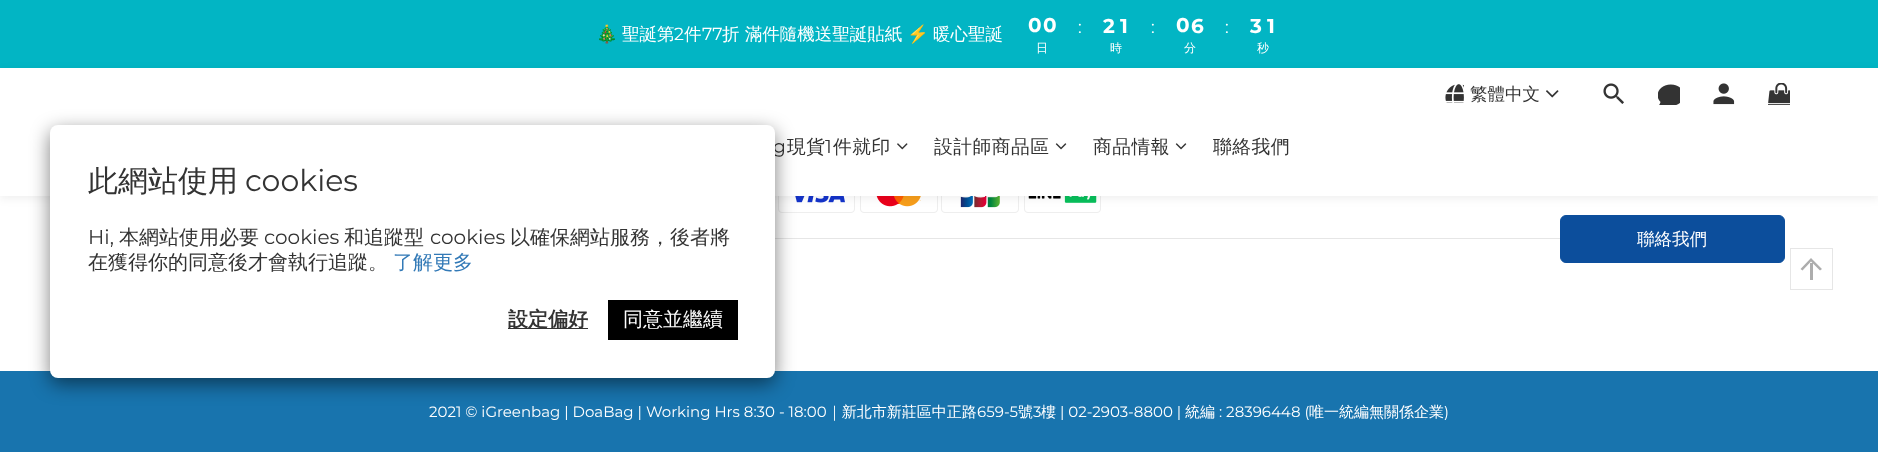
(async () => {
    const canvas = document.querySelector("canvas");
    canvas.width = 1878;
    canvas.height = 452;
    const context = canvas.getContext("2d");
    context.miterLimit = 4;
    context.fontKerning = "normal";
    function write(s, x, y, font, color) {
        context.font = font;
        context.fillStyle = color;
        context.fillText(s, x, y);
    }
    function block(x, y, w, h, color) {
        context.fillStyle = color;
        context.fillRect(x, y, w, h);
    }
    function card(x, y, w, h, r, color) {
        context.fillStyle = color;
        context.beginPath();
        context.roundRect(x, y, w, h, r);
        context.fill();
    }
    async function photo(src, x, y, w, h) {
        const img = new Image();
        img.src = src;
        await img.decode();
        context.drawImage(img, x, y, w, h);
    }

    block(0, 0, 1878, 452, "rgb(255, 255, 255)");
    block(0, 0, 1878, 68, "rgb(2, 181, 196)");
    context.save();
    context.beginPath();
    context.rect(596, 21, 407, 25);
    context.clip();
    write("🎄", 596, 40, "17.5px Noto Color Emoji", "rgb(255, 255, 255)");
    context.restore();
    write("聖誕第", 622, 40, "500 17.5px WenQuanYi Zen Hei", "rgb(255, 255, 255)");
    write("2", 674, 40, "17.5px Montserrat", "rgb(255, 255, 255)");
    write("件", 684, 40, "500 17.5px WenQuanYi Zen Hei", "rgb(255, 255, 255)");
    write("77", 702, 40, "17.5px Montserrat", "rgb(255, 255, 255)");
    write("折 滿件隨機送聖誕貼紙", 722, 40, "500 17.5px WenQuanYi Zen Hei", "rgb(255, 255, 255)");
    write("⚡", 907, 40, "17.5px Noto Color Emoji", "rgb(255, 255, 255)");
    write("暖心聖誕", 933, 40, "500 17.5px WenQuanYi Zen Hei", "rgb(255, 255, 255)");
    write("0", 1028, 32, "bold 20px Montserrat", "rgb(255, 255, 255)");
    write("0", 1043, 32, "bold 20px Montserrat", "rgb(255, 255, 255)");
    write("日", 1036, 52, "500 12px WenQuanYi Zen Hei", "rgb(255, 255, 255)");
    write(":", 1078, 33, "17.5px Montserrat", "rgb(255, 255, 255)");
    write("2", 1103, 33, "bold 20px Montserrat", "rgb(255, 255, 255)");
    write("1", 1120, 33, "bold 20px Montserrat", "rgb(255, 255, 255)");
    write("時", 1110, 52, "500 12px WenQuanYi Zen Hei", "rgb(255, 255, 255)");
    write(":", 1151, 33, "17.5px Montserrat", "rgb(255, 255, 255)");
    write("0", 1176, 32, "bold 20px Montserrat", "rgb(255, 255, 255)");
    write("6", 1191, 33, "bold 20px Montserrat", "rgb(255, 255, 255)");
    write("分", 1184, 52, "500 12px WenQuanYi Zen Hei", "rgb(255, 255, 255)");
    write(":", 1225, 33, "17.5px Montserrat", "rgb(255, 255, 255)");
    write("3", 1250, 33, "bold 20px Montserrat", "rgb(255, 255, 255)");
    write("1", 1267, 33, "bold 20px Montserrat", "rgb(255, 255, 255)");
    write("秒", 1257, 52, "500 12px WenQuanYi Zen Hei", "rgb(255, 255, 255)");
    await photo("media/9.png", 778, 196, 77, 17);
    await photo("media/10.png", 860, 196, 78, 17);
    await photo("media/11.png", 941, 196, 78, 17);
    await photo("media/12.png", 1024, 196, 77, 17);
    context.fillStyle = "rgba(0, 0, 0, 0.06)";
    context.filter = "blur(4px)";
    context.beginPath();
    context.rect(0, 70, 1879, 129);
    context.fill();
    context.filter = "none";
    block(0, 68, 1878, 128, "rgb(255, 255, 255)");
    await photo("media/1.png", 1445, 84, 19, 19);
    write("繁體中文", 1470, 100, "500 17.5px WenQuanYi Zen Hei", "rgb(51, 51, 51)");
    await photo("media/2.png", 1546, 90, 13, 8);
    await photo("media/3.png", 1603, 83, 21, 21);
    await photo("media/4.png", 1658, 84, 22, 21);
    await photo("media/5.png", 1713, 83, 22, 22);
    await photo("media/6.png", 1768, 83, 22, 22);
    context.letterSpacing = "0.5px";
    write("g", 773, 153, "18.75px Montserrat", "rgb(51, 51, 51)");
    write("現貨", 787, 153, "500 18.75px WenQuanYi Zen Hei", "rgb(51, 51, 51)");
    write("1", 825, 153, "18.75px Montserrat", "rgb(51, 51, 51)");
    write("件就印", 833, 153, "500 18.75px WenQuanYi Zen Hei", "rgb(51, 51, 51)");
    await photo("media/7.png", 897, 143, 11, 7);
    write("設計師商品區", 934, 153, "500 18.75px WenQuanYi Zen Hei", "rgb(51, 51, 51)");
    await photo("media/8.png", 1055, 143, 12, 7);
    write("商品情報", 1093, 153, "500 18.75px WenQuanYi Zen Hei", "rgb(51, 51, 51)");
    await photo("media/8.png", 1175, 143, 12, 7);
    write("聯絡我們", 1213, 153, "500 18.75px WenQuanYi Zen Hei", "rgb(51, 51, 51)");
    block(775, 238, 785, 1, "rgb(230, 230, 230)");
    block(0, 371, 1878, 81, "rgb(24, 116, 174)");
    context.fillStyle = "rgba(0, 0, 0, 0.5)";
    context.filter = "blur(9.5px)";
    context.beginPath();
    context.roundRect(50, 131, 725, 253, 8);
    context.fill();
    context.filter = "none";
    card(50, 125, 725, 253, 8, "rgb(255, 255, 255)");
    context.letterSpacing = "0px";
    write("此網站使用", 88, 191, "500 30px WenQuanYi Zen Hei", "rgb(51, 51, 51)");
    write("cookies", 245, 191, "30px Montserrat", "rgb(51, 51, 51)");
    write("Hi,", 88, 244, "20px Montserrat", "rgb(51, 51, 51)");
    write("本網站使用必要", 119, 244, "500 20px WenQuanYi Zen Hei", "rgb(51, 51, 51)");
    write("cookies", 264, 244, "20px Montserrat", "rgb(51, 51, 51)");
    write("和追蹤型", 344, 244, "500 20px WenQuanYi Zen Hei", "rgb(51, 51, 51)");
    write("cookies", 430, 244, "20px Montserrat", "rgb(51, 51, 51)");
    write("以確保網站服務，後者將", 510, 244, "500 20px WenQuanYi Zen Hei", "rgb(51, 51, 51)");
    write("在獲得你的同意後才會執行追蹤。", 88, 269, "500 20px WenQuanYi Zen Hei", "rgb(51, 51, 51)");
    write("了解更多", 393, 269, "500 20px WenQuanYi Zen Hei", "rgb(51, 122, 183)");
    block(508, 328, 80, 1, "rgb(51, 51, 51)");
    write("設定偏好", 508, 326, "bold 20px WenQuanYi Zen Hei", "rgb(51, 51, 51)");
    block(608, 300, 130, 40, "rgb(0, 0, 0)");
    write("同意並繼續", 623, 326, "500 20px WenQuanYi Zen Hei", "rgb(255, 255, 255)");
    context.fillStyle = "rgb(12, 78, 156)";
    context.beginPath();
    context.roundRect(1560.5, 215.5, 224, 47, 5.5);
    context.fill();
    context.strokeStyle = "rgb(12, 78, 156)";
    context.stroke();
    write("聯絡我們", 1637, 245, "500 17.5px WenQuanYi Zen Hei", "rgb(255, 255, 255)");
    context.strokeStyle = "rgb(230, 230, 230)";
    context.strokeRect(1790.5, 248.5, 42, 41);
    context.fillStyle = "rgb(173, 173, 173)";
    context.beginPath();
    context.moveTo(1811, 258);
    context.lineTo(1822, 269);
    context.lineTo(1820, 270.5);
    context.lineTo(1811, 261.5);
    context.closePath();
    context.moveTo(1800.5, 269);
    context.lineTo(1811, 258);
    context.lineTo(1811, 261.5);
    context.lineTo(1802.5, 270.5);
    context.closePath();
    context.fill();
    block(1810, 263, 3, 17, "rgba(153, 153, 153, 0.8)");
    write("2021 © iGreenbag | DoaBag | Working Hrs 8:30 - 18:00", 429, 417, "15px Montserrat", "rgb(255, 255, 255)");
    write("｜新北市新莊區中正路", 827, 417, "500 15px WenQuanYi Zen Hei", "rgb(255, 255, 255)");
    write("659-5", 977, 417, "15px Montserrat", "rgb(255, 255, 255)");
    write("號", 1018, 417, "500 15px WenQuanYi Zen Hei", "rgb(255, 255, 255)");
    write("3", 1033, 417, "15px Montserrat", "rgb(255, 255, 255)");
    write("樓", 1041, 417, "500 15px WenQuanYi Zen Hei", "rgb(255, 255, 255)");
    write("| 02-2903-8800 |", 1060, 417, "15px Montserrat", "rgb(255, 255, 255)");
    write("統編", 1185, 417, "500 15px WenQuanYi Zen Hei", "rgb(255, 255, 255)");
    write(": 28396448 (", 1219, 417, "15px Montserrat", "rgb(255, 255, 255)");
    write("唯一統編無關係企業", 1309, 417, "500 15px WenQuanYi Zen Hei", "rgb(255, 255, 255)");
    write(")", 1444, 417, "15px Montserrat", "rgb(255, 255, 255)");
})();
